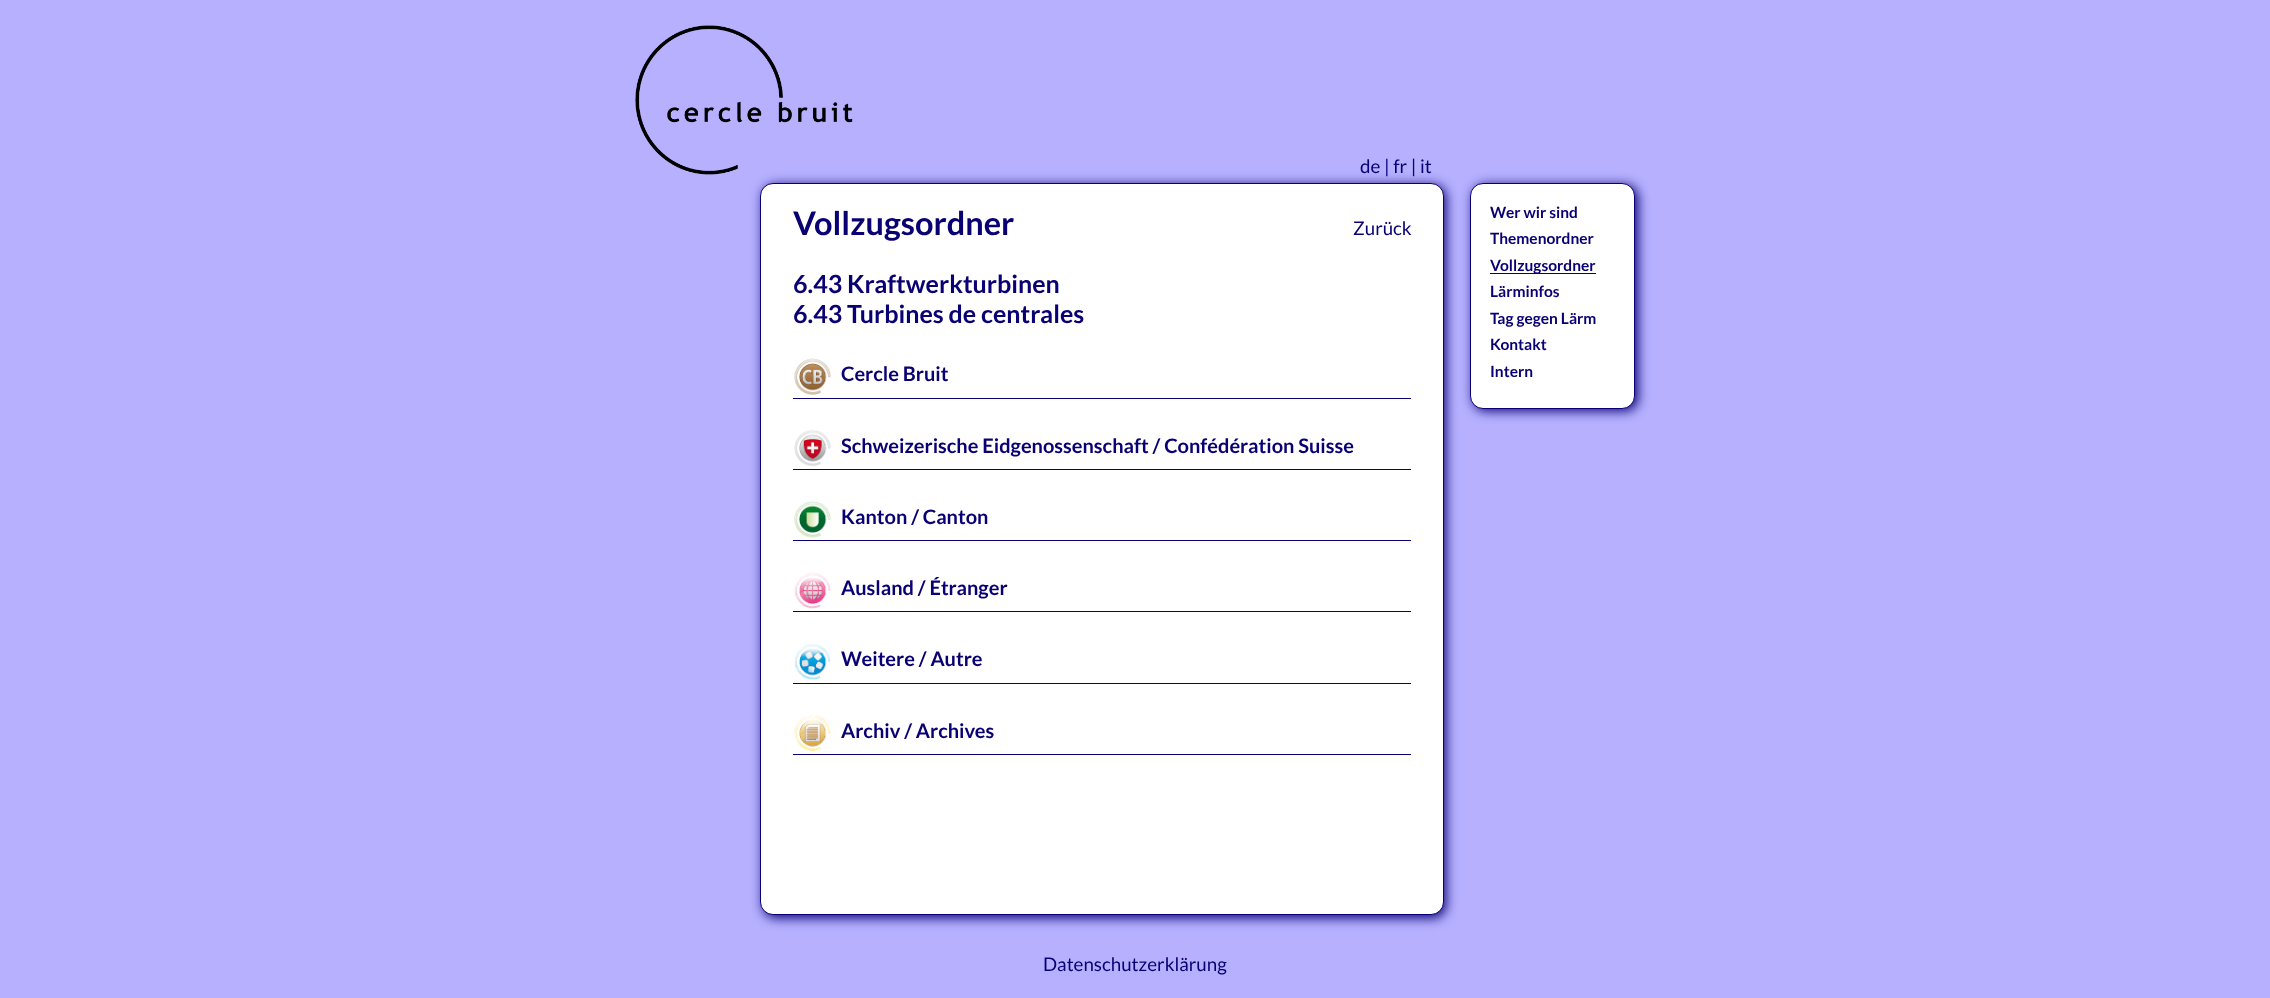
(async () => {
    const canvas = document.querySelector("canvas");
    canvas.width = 2270;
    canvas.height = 998;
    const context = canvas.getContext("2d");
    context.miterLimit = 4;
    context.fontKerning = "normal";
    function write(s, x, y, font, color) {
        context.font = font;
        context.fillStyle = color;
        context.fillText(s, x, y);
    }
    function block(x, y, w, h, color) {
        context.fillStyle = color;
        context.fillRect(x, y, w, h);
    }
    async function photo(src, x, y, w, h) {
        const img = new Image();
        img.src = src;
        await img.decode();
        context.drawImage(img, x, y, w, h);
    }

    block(0, 0, 2270, 998, "rgb(182, 176, 255)");
    context.fillStyle = "rgb(9, 0, 116)";
    context.filter = "blur(6px)";
    context.beginPath();
    context.roundRect(763, 185, 683, 733, 13);
    context.fill();
    context.filter = "none";
    await photo("media/1.png", 635, 25, 218, 150);
    write("de | fr | it", 1360, 173, "18.75px Lato", "rgb(9, 0, 116)");
    context.fillStyle = "rgb(255, 255, 255)";
    context.beginPath();
    context.roundRect(760.5, 183.5, 683, 731, 12.5);
    context.fill();
    context.strokeStyle = "rgb(9, 0, 116)";
    context.stroke();
    write("Vollzugsordner", 793, 235, "bold 32.5px Lato", "rgb(9, 0, 116)");
    write("Zurück", 1353, 235, "18.75px Lato", "rgb(9, 0, 116)");
    write("6.43 Kraftwerkturbinen", 793, 293, "bold 25px Lato", "rgb(9, 0, 116)");
    write("6.43 Turbines de centrales", 793, 323, "bold 25px Lato", "rgb(9, 0, 116)");
    block(793, 398, 618, 1, "rgb(9, 0, 116)");
    await photo("media/2.png", 794, 358, 37, 37);
    write("Cercle Bruit", 841, 381, "bold 20px Lato", "rgb(9, 0, 116)");
    block(793, 469, 618, 1, "rgb(9, 0, 116)");
    await photo("media/3.png", 794, 429, 37, 38);
    write("Schweizerische Eidgenossenschaft / Confédération Suisse", 841, 453, "bold 20px Lato", "rgb(9, 0, 116)");
    block(793, 540, 618, 1, "rgb(9, 0, 116)");
    await photo("media/4.png", 794, 501, 37, 37);
    write("Kanton / Canton", 841, 524, "bold 20px Lato", "rgb(9, 0, 116)");
    block(793, 611, 618, 1, "rgb(9, 0, 116)");
    await photo("media/5.png", 794, 572, 37, 37);
    write("Ausland / Étranger", 841, 595, "bold 20px Lato", "rgb(9, 0, 116)");
    block(793, 683, 618, 1, "rgb(9, 0, 116)");
    await photo("media/6.png", 794, 643, 37, 37);
    write("Weitere / Autre", 841, 666, "bold 20px Lato", "rgb(9, 0, 116)");
    block(793, 754, 618, 1, "rgb(9, 0, 116)");
    await photo("media/7.png", 794, 714, 37, 38);
    write("Archiv / Archives", 841, 738, "bold 20px Lato", "rgb(9, 0, 116)");
    context.filter = "blur(6px)";
    context.beginPath();
    context.roundRect(1473, 185, 165, 226, 13);
    context.fill();
    context.filter = "none";
    context.fillStyle = "rgb(255, 255, 255)";
    context.beginPath();
    context.roundRect(1470.5, 183.5, 164, 225, 12.5);
    context.fill();
    context.stroke();
    write("Wer wir sind", 1490, 218, "bold 15.5px Lato", "rgb(9, 0, 116)");
    write("Themenordner", 1490, 244, "bold 15.5px Lato", "rgb(9, 0, 116)");
    block(1490, 273, 106, 1, "rgb(9, 0, 116)");
    write("Vollzugsordner", 1490, 271, "bold 15.5px Lato", "rgb(9, 0, 116)");
    write("Lärminfos", 1490, 297, "bold 15.5px Lato", "rgb(9, 0, 116)");
    write("Tag gegen Lärm", 1490, 324, "bold 15.5px Lato", "rgb(9, 0, 116)");
    write("Kontakt", 1490, 350, "bold 15.5px Lato", "rgb(9, 0, 116)");
    write("Intern", 1490, 377, "bold 15.5px Lato", "rgb(9, 0, 116)");
    write("Datenschutzerklärung", 1043, 971, "18.75px Lato", "rgb(9, 0, 116)");
})();
